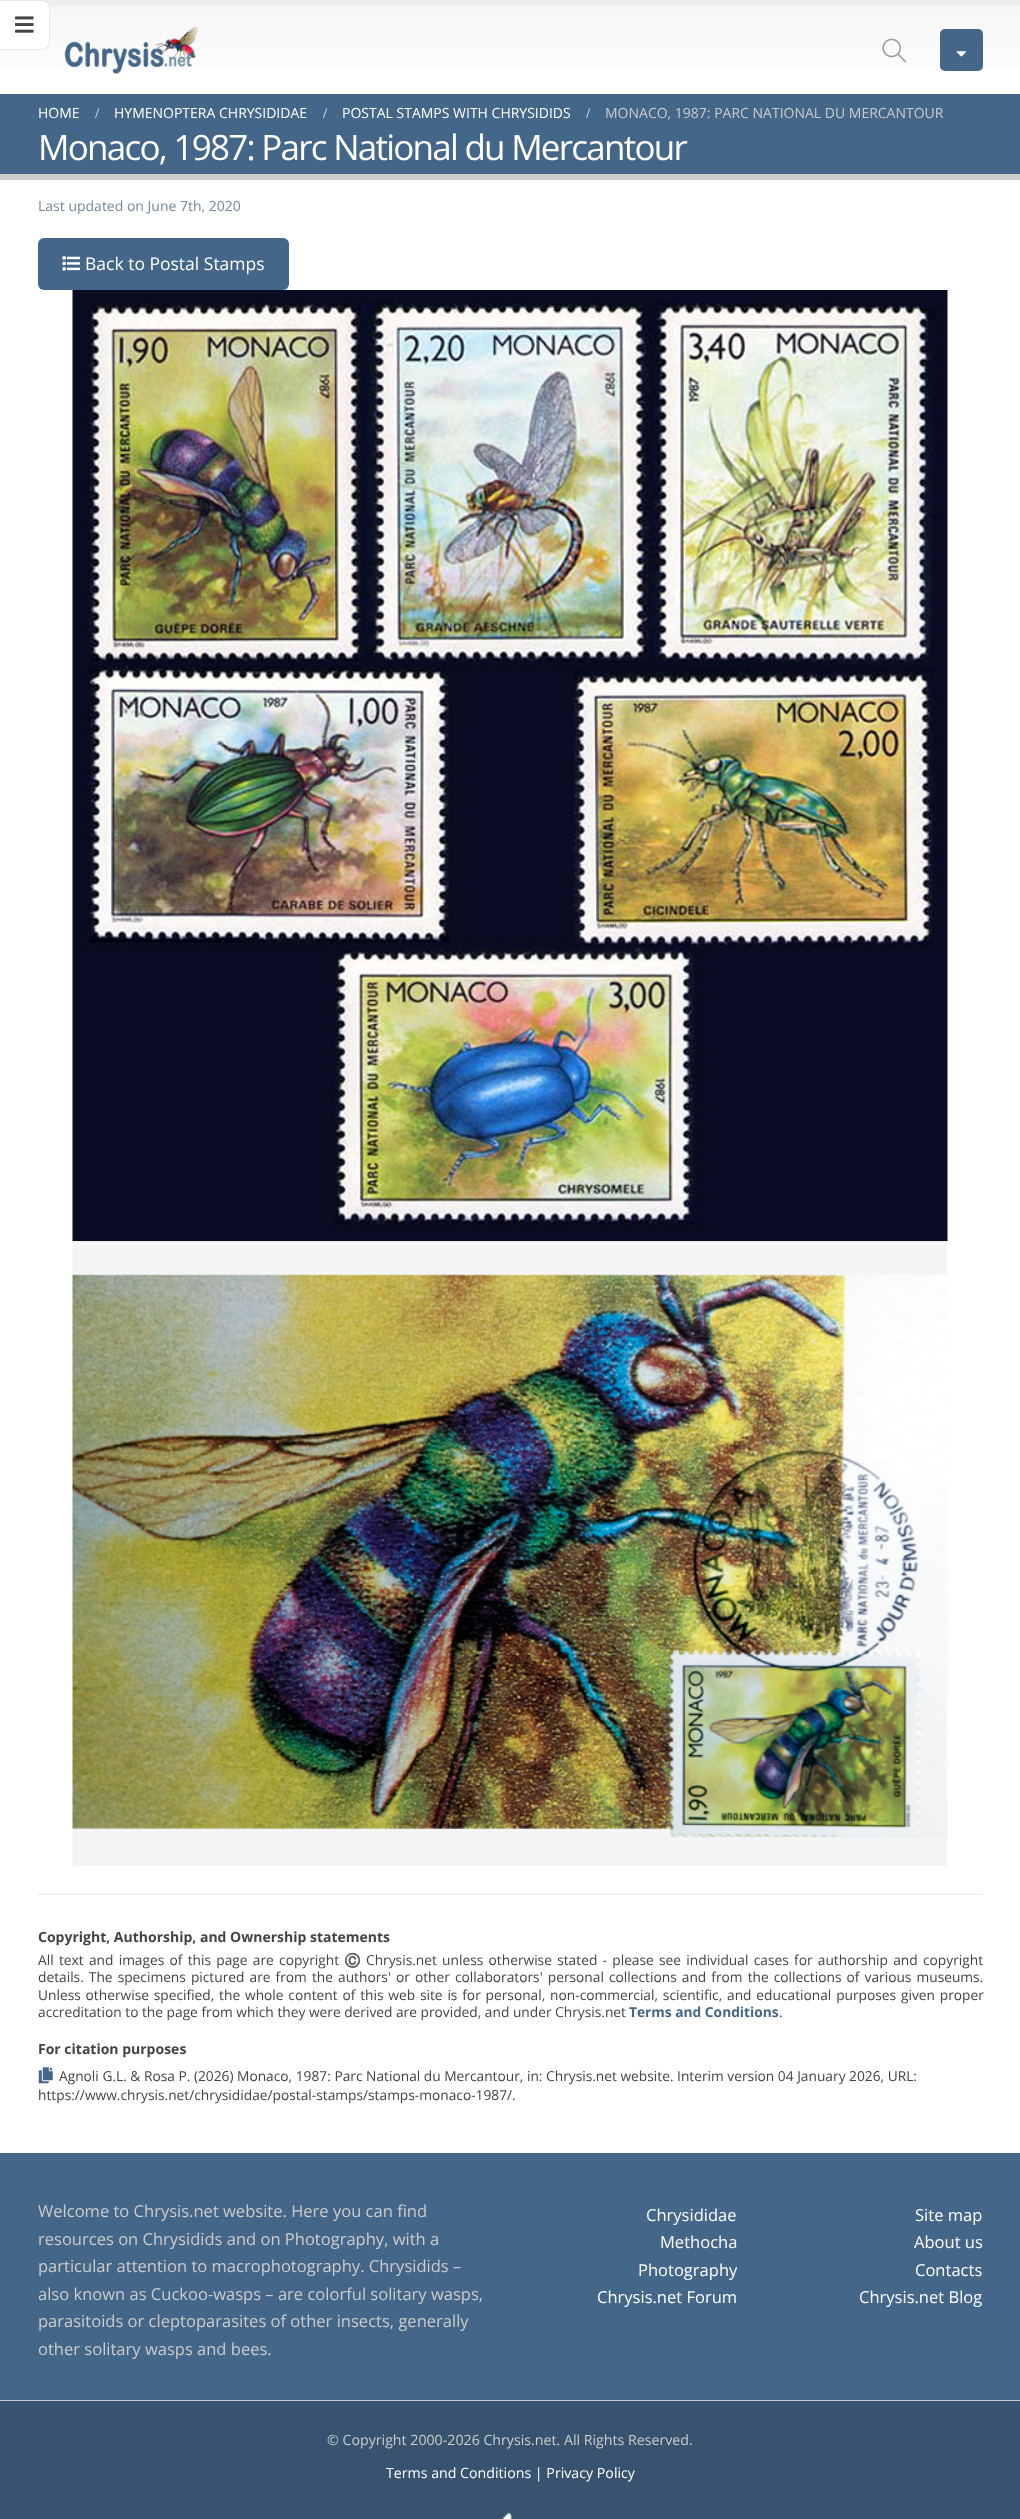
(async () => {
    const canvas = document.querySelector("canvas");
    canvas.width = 1020;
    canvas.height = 2519;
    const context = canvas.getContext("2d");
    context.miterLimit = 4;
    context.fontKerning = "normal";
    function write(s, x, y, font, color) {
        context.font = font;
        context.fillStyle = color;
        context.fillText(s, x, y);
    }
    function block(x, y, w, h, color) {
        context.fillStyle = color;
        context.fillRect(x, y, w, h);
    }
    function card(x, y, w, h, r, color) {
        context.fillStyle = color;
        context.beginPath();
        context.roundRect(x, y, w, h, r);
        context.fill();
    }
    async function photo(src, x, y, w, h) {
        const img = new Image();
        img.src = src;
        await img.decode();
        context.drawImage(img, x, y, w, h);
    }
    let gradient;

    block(0, 0, 1020, 2519, "rgb(255, 255, 255)");
    block(42, 0, 978, 6, "rgb(237, 237, 237)");
    gradient = context.createLinearGradient(510, 6.2, 510, 94);
    gradient.addColorStop(0, "rgb(246, 246, 246)");
    gradient.addColorStop(1, "rgb(255, 255, 255)");
    context.fillStyle = gradient;
    context.fillRect(0, 6, 1020, 64);
    await photo("media/1.png", 64, 26, 135, 48);
    await photo("media/2.png", 882, 38, 25, 25);
    card(940, 29, 43, 42, 5, "rgb(68, 102, 136)");
    await photo("media/3.png", 956, 51, 10, 6);
    block(0, 94, 1020, 80, "rgb(68, 102, 136)");
    block(0, 174, 1020, 6, "rgb(204, 204, 204)");
    write("HOME", 38, 118, "14px Open Sans", "rgb(255, 255, 255)");
    write("/", 95, 118, "bold 15px Liberation Serif", "rgb(204, 204, 204)");
    write("HYMENOPTERA CHRYSIDIDAE", 114, 118, "14px Open Sans", "rgb(255, 255, 255)");
    write("/", 323, 118, "bold 15px Liberation Serif", "rgb(204, 204, 204)");
    write("POSTAL STAMPS WITH CHRYSIDIDS", 342, 118, "14px Open Sans", "rgb(255, 255, 255)");
    write("/", 586, 118, "bold 15px Liberation Serif", "rgb(204, 204, 204)");
    write("MONACO, 1987: PARC NATIONAL DU MERCANTOUR", 605, 118, "14px Open Sans", "rgb(204, 204, 204)");
    context.letterSpacing = "-1.75px";
    write("Monaco, 1987: Parc National du Mercantour", 38, 160, "35px Open Sans", "rgb(255, 255, 255)");
    context.beginPath();
    context.roundRect(0, 0, 50, 50, [0, 8, 8, 0]);
    context.fill();
    context.fillStyle = "rgba(0, 0, 0, 0.09)";
    context.beginPath();
    context.moveTo(0, 0);
    context.lineTo(42, 0);
    context.bezierCurveTo(47, 0, 50, 3, 50, 8);
    context.lineTo(50, 42);
    context.bezierCurveTo(50, 47, 47, 50, 42, 50);
    context.lineTo(0, 50);
    context.closePath();
    context.moveTo(0, 1);
    context.lineTo(42, 1);
    context.bezierCurveTo(46, 1, 49, 4, 49, 8);
    context.lineTo(49, 42);
    context.bezierCurveTo(49, 46, 46, 49, 42, 49);
    context.lineTo(0, 49);
    context.closePath();
    context.fill("evenodd");
    await photo("media/4.png", 15, 16, 19, 17);
    context.letterSpacing = "0px";
    write("Last updated on June 7th, 2020", 38, 211, "14px Open Sans", "rgb(119, 136, 153)");
    card(38, 238, 251, 52, 6, "rgb(68, 102, 136)");
    await photo("media/5.png", 62, 256, 18, 15);
    write("Back to Postal Stamps", 85, 270, "17.5px Open Sans", "rgb(255, 255, 255)");
    await photo("media/6.png", 72, 290, 876, 952);
    await photo("media/7.png", 72, 1241, 876, 625);
    block(38, 1894, 945, 1, "rgb(235, 235, 235)");
    write("Copyright, Authorship, and Ownership statements", 38, 1942, "bold 14px Open Sans", "rgb(68, 68, 68)");
    context.wordSpacing = "1.7px";
    write("All text and images of this page are copyright", 38, 1965, "13.75px Open Sans", "rgb(68, 68, 68)");
    context.wordSpacing = "0px";
    write("©️", 344, 1965, "13.75px Noto Color Emoji", "rgb(68, 68, 68)");
    context.wordSpacing = "1.7px";
    write("Chrysis.net unless otherwise stated - please see individual cases for authorship and copyright", 366, 1965, "13.75px Open Sans", "rgb(68, 68, 68)");
    context.wordSpacing = "1.5px";
    write("details. The specimens pictured are from the authors' or other collaborators' personal collections and from the collections of various museums.", 38, 1982, "13.75px Open Sans", "rgb(68, 68, 68)");
    context.wordSpacing = "1.25px";
    write("Unless otherwise specified, the whole content of this web site is for personal, non-commercial, scientific, and educational purposes given proper", 38, 2000, "13.75px Open Sans", "rgb(68, 68, 68)");
    context.wordSpacing = "0px";
    write("accreditation to the page from which they were derived are provided, and under Chrysis.net", 38, 2017, "13.75px Open Sans", "rgb(68, 68, 68)");
    write("Terms and Conditions", 629, 2017, "bold 13.75px Open Sans", "rgb(68, 102, 136)");
    write(".", 779, 2017, "13.75px Open Sans", "rgb(68, 68, 68)");
    write("For citation purposes", 38, 2054, "bold 14px Open Sans", "rgb(68, 68, 68)");
    await photo("media/8.png", 38, 2067, 15, 17);
    write("Agnoli G.L. & Rosa P. (2026) Monaco, 1987: Parc National du Mercantour, in: Chrysis.net website. Interim version 04 January 2026, URL:", 59, 2081, "13.75px Open Sans", "rgb(68, 68, 68)");
    write("https://www.chrysis.net/chrysididae/postal-stamps/stamps-monaco-1987/.", 38, 2100, "13.75px Open Sans", "rgb(68, 68, 68)");
    block(0, 2401, 1020, 118, "rgb(55, 83, 111)");
    block(0, 2153, 1020, 247, "rgb(68, 102, 136)");
    block(0, 2400, 1020, 1, "rgb(204, 204, 204)");
    write("Welcome to Chrysis.net website. Here you can find", 38, 2217, "16.55px Open Sans", "rgb(204, 204, 204)");
    write("resources on Chrysidids and on Photography, with a", 38, 2245, "16.55px Open Sans", "rgb(204, 204, 204)");
    write("particular attention to macrophotography. Chrysidids –", 38, 2272, "16.55px Open Sans", "rgb(204, 204, 204)");
    write("also known as Cuckoo-wasps – are colorful solitary wasps,", 38, 2300, "16.55px Open Sans", "rgb(204, 204, 204)");
    write("parasitoids or cleptoparasites of other insects, generally", 38, 2327, "16.55px Open Sans", "rgb(204, 204, 204)");
    write("other solitary wasps and bees.", 38, 2355, "16.55px Open Sans", "rgb(204, 204, 204)");
    write("Chrysididae", 646, 2221, "16.55px Open Sans", "rgb(255, 255, 255)");
    write("Methocha", 660, 2248, "16.55px Open Sans", "rgb(255, 255, 255)");
    write("Photography", 638, 2276, "16.55px Open Sans", "rgb(255, 255, 255)");
    write("Chrysis.net Forum", 597, 2303, "16.55px Open Sans", "rgb(255, 255, 255)");
    write("Site map", 915, 2221, "16.55px Open Sans", "rgb(255, 255, 255)");
    write("About us", 914, 2248, "16.55px Open Sans", "rgb(255, 255, 255)");
    write("Contacts", 915, 2276, "16.55px Open Sans", "rgb(255, 255, 255)");
    write("Chrysis.net Blog", 859, 2303, "16.55px Open Sans", "rgb(255, 255, 255)");
    write("© Copyright 2000-2026 Chrysis.net. All Rights Reserved.", 327, 2445, "14.2px Open Sans", "rgb(204, 204, 204)");
    write("Terms and Conditions | Privacy Policy", 386, 2478, "14.2px Open Sans", "rgb(255, 255, 255)");
    await photo("media/9.png", 502, 2512, 10, 7);
})();
